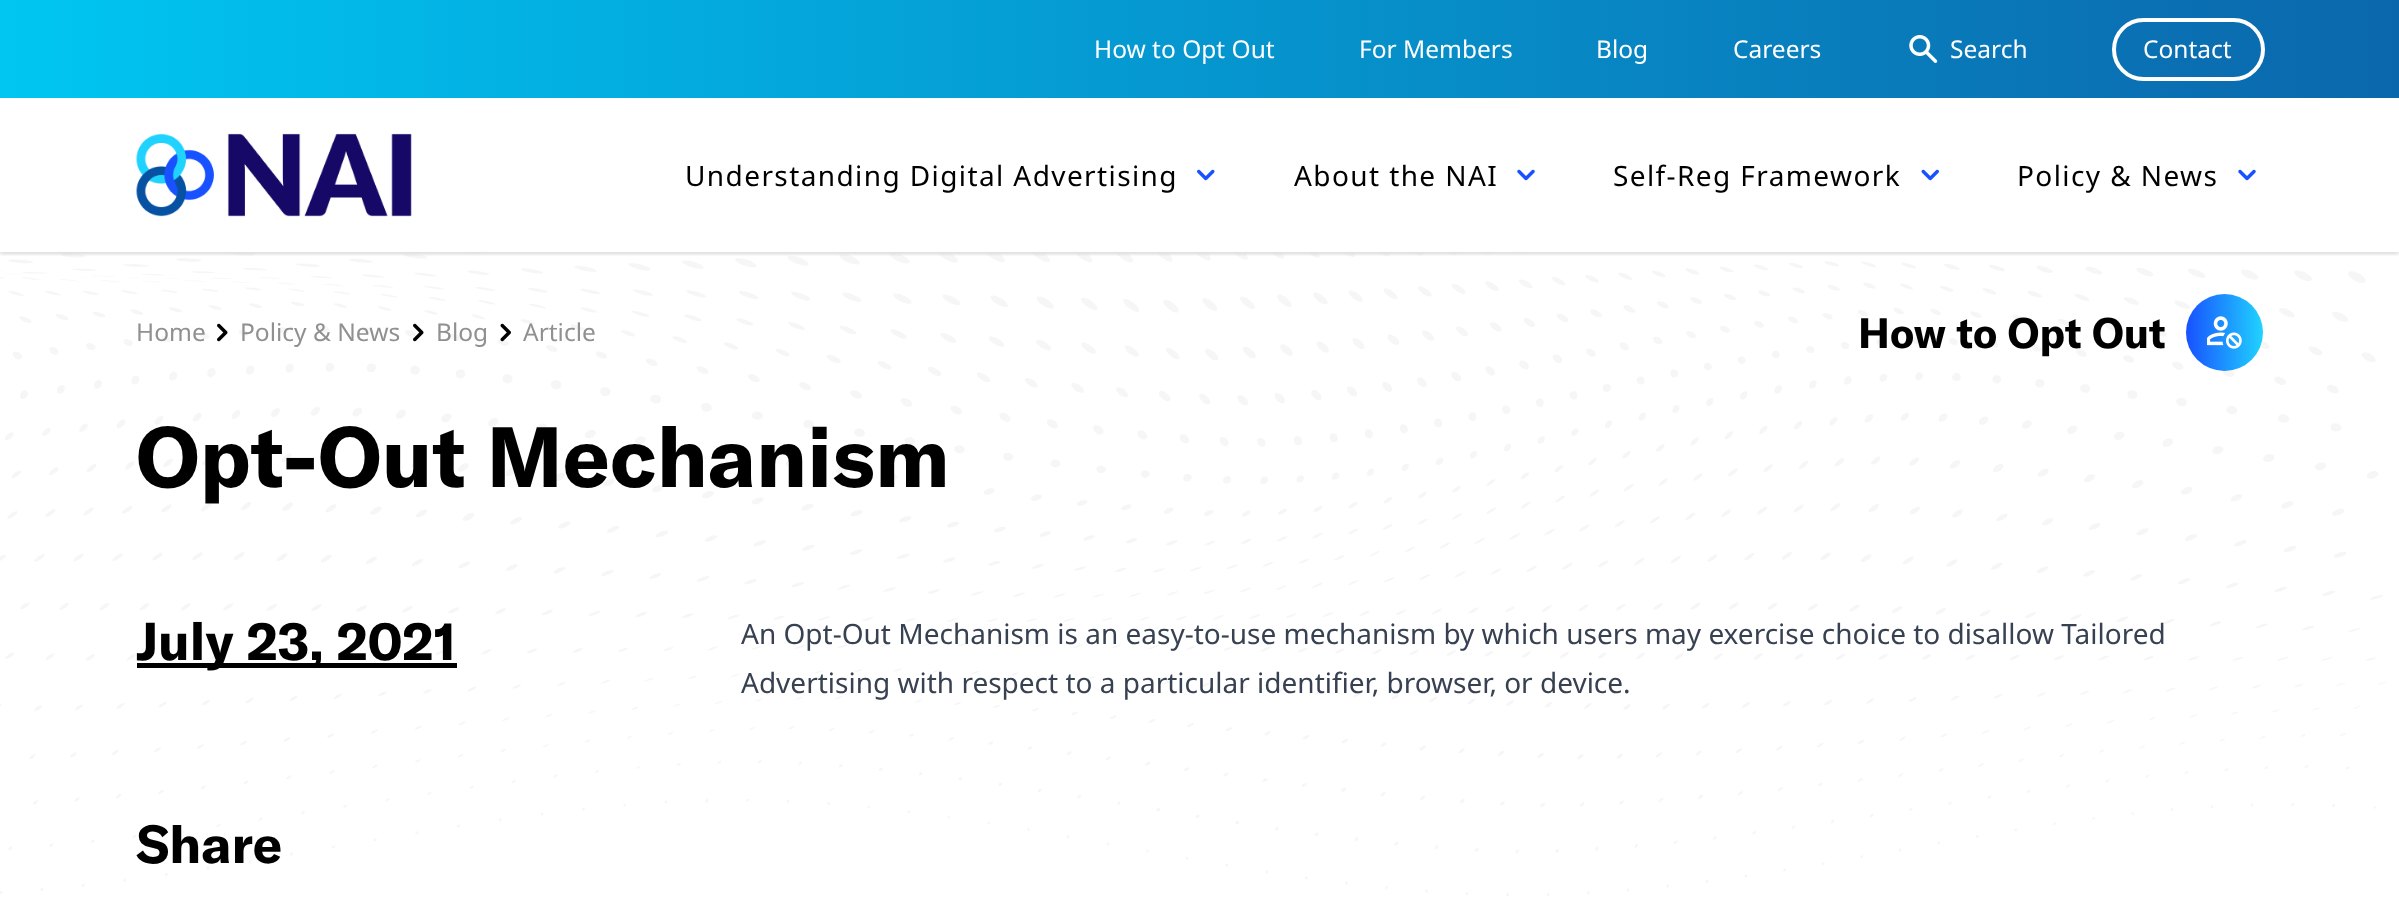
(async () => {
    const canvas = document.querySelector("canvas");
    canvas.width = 2399;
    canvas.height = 923;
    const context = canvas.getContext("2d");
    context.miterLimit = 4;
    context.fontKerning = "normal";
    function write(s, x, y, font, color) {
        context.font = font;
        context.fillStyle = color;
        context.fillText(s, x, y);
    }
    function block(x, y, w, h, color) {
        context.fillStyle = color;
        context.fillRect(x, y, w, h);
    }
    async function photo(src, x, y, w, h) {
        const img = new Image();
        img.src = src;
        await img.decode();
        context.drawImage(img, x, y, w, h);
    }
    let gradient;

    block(0, 0, 2399, 923, "rgb(255, 255, 255)");
    gradient = context.createLinearGradient(0, 98, 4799, 98);
    gradient.addColorStop(0, "rgb(0, 198, 242)");
    gradient.addColorStop(1, "rgb(22, 8, 102)");
    context.fillStyle = gradient;
    context.fillRect(0, 0, 2399, 98);
    write("How to Opt Out", 1094, 58, "24.5px Noto Sans", "rgb(255, 255, 255)");
    write("For Members", 1359, 58, "24.5px Noto Sans", "rgb(255, 255, 255)");
    write("Blog", 1596, 58, "24.5px Noto Sans", "rgb(255, 255, 255)");
    write("Careers", 1733, 58, "24.5px Noto Sans", "rgb(255, 255, 255)");
    await photo("media/1.png", 1909, 35, 29, 28);
    write("Search", 1950, 58, "24.5px Noto Sans", "rgb(255, 255, 255)");
    context.beginPath();
    context.roundRect(2114, 20, 149, 59, 29.5);
    context.strokeStyle = "rgb(255, 255, 255)";
    context.lineWidth = 4;
    context.stroke();
    write("Contact", 2143, 58, "24.5px Noto Sans", "rgb(255, 255, 255)");
    context.save();
    context.beginPath();
    context.rect(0, 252, 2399, 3);
    context.clip();
    context.fillStyle = "rgba(0, 0, 0, 0.06)";
    context.filter = "blur(2px)";
    context.beginPath();
    context.rect(0, 100, 2399, 154);
    context.fill();
    context.filter = "none";
    context.restore();
    context.save();
    context.beginPath();
    context.rect(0, 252, 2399, 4);
    context.clip();
    context.fillStyle = "rgba(0, 0, 0, 0.1)";
    context.filter = "blur(2.5px)";
    context.beginPath();
    context.rect(0, 100, 2399, 154);
    context.fill();
    context.filter = "none";
    context.restore();
    await photo("media/2.png", 136, 133, 276, 84);
    context.letterSpacing = "1.4px";
    write("Understanding Digital Advertising", 685, 186, "28px Noto Sans", "rgb(0, 0, 0)");
    await photo("media/3.png", 1197, 169, 18, 12);
    write("About the NAI", 1294, 186, "28px Noto Sans", "rgb(0, 0, 0)");
    await photo("media/4.png", 1517, 169, 18, 12);
    write("Self-Reg Framework", 1613, 186, "28px Noto Sans", "rgb(0, 0, 0)");
    await photo("media/5.png", 1921, 169, 18, 12);
    write("Policy & News", 2017, 186, "28px Noto Sans", "rgb(0, 0, 0)");
    await photo("media/4.png", 2238, 169, 18, 12);
    await photo("media/6.png", 0, 253, 2386, 643);
    context.letterSpacing = "0px";
    write("Home", 136, 341, "24.5px Noto Sans", "rgb(144, 144, 144)");
    await photo("media/7.png", 217, 323, 11, 19);
    write("Policy & News", 240, 341, "24.5px Noto Sans", "rgb(144, 144, 144)");
    await photo("media/8.png", 413, 323, 11, 19);
    write("Blog", 436, 341, "24.5px Noto Sans", "rgb(144, 144, 144)");
    await photo("media/9.png", 500, 323, 11, 19);
    write("Article", 523, 341, "24.5px Noto Sans", "rgb(144, 144, 144)");
    write("How to Opt Out", 1858, 348, "bold 42px GT America", "rgb(0, 0, 0)");
    gradient = context.createLinearGradient(2186, 333, 2263, 333);
    gradient.addColorStop(0, "rgb(24, 81, 255)");
    gradient.addColorStop(1, "rgb(32, 211, 255)");
    context.fillStyle = gradient;
    context.beginPath();
    context.arc(2224.5, 332.5, 38.5, 0, Math.PI * 2);
    context.fill();
    await photo("media/10.png", 2207, 316, 35, 33);
    write("Opt-Out Mechanism", 136, 487, "bold 84px GT America", "rgb(0, 0, 0)");
    block(137, 663, 320, 5, "rgb(0, 0, 0)");
    write("July 23, 2021", 136, 660, "bold 52.5px GT America", "rgb(0, 0, 0)");
    write("Share", 136, 863, "bold 52.5px GT America", "rgb(0, 0, 0)");
    write("An Opt-Out Mechanism is an easy-to-use mechanism by which users may exercise choice to disallow Tailored", 741, 644, "28px Noto Sans", "rgb(55, 65, 81)");
    write("Advertising with respect to a particular identifier, browser, or device.", 741, 693, "28px Noto Sans", "rgb(55, 65, 81)");
})();
